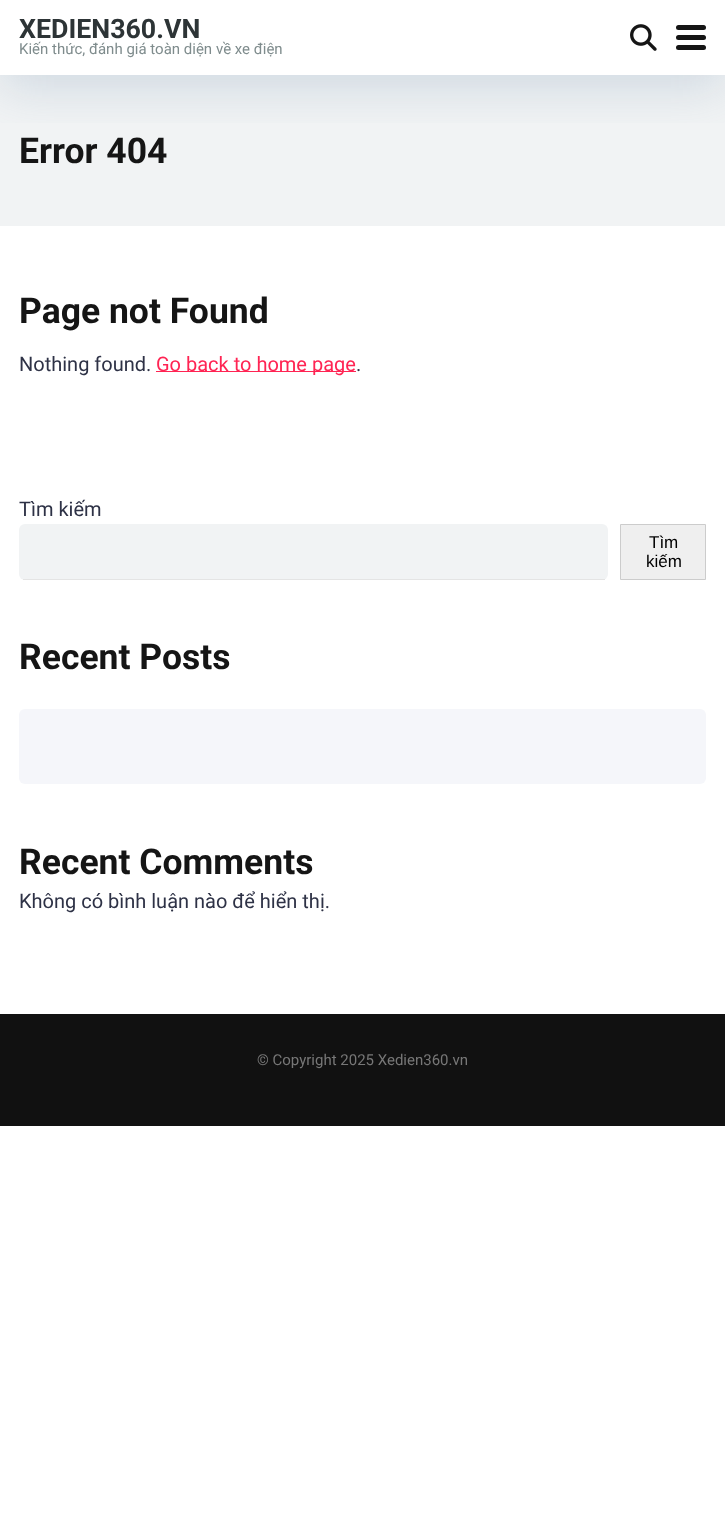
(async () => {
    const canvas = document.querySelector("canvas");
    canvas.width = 725;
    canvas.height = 1531;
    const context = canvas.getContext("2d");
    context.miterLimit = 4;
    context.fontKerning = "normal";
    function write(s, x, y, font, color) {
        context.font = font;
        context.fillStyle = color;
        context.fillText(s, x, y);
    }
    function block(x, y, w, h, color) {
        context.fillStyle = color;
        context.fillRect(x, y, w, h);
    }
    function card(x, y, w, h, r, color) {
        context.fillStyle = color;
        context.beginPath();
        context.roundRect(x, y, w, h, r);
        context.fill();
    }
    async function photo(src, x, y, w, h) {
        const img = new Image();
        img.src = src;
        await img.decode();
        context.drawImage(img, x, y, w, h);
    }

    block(0, 0, 725, 1531, "rgb(255, 255, 255)");
    block(0, 75, 725, 151, "rgb(241, 243, 244)");
    context.save();
    context.beginPath();
    context.rect(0, 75, 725, 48);
    context.clip();
    context.fillStyle = "rgba(109, 141, 173, 0.25)";
    context.filter = "blur(25px)";
    context.beginPath();
    context.rect(0, 13, 725, 75);
    context.fill();
    context.filter = "none";
    context.restore();
    write("XEDIEN360.VN", 19, 38, "bold 26.75px Roboto", "rgb(45, 52, 54)");
    write("Kiến thức, đánh giá toàn diện về xe điện", 19, 54, "15px Roboto", "rgb(127, 140, 141)");
    await photo("media/1.png", 630, 24, 27, 27);
    card(676, 25, 30, 5, 2.5, "rgb(21, 21, 21)");
    card(676, 35, 30, 5, 2.5, "rgb(21, 21, 21)");
    card(676, 45, 30, 5, 2.5, "rgb(21, 21, 21)");
    write("Error 404", 19, 163, "bold 35.5px Roboto", "rgb(21, 21, 21)");
    write("Page not Found", 19, 323, "bold 35.5px Roboto", "rgb(21, 21, 21)");
    write("Nothing found.", 19, 371, "20px Roboto", "rgb(46, 50, 70)");
    block(156, 371, 200, 1, "rgb(255, 36, 83)");
    write("Go back to home page", 156, 371, "20px Roboto", "rgb(255, 36, 83)");
    write(".", 356, 371, "20px Roboto", "rgb(46, 50, 70)");
    write("Tìm kiếm", 19, 516, "20px Roboto", "rgb(46, 50, 70)");
    card(19, 524, 589, 56, 6, "rgb(241, 243, 244)");
    block(23, 579, 582, 1, "rgb(228, 228, 228)");
    context.fillStyle = "rgb(239, 239, 239)";
    context.beginPath();
    context.rect(620.5, 524.5, 85, 55);
    context.fill();
    context.strokeStyle = "rgb(204, 204, 204)";
    context.stroke();
    write("Tìm", 649, 548, "17px Liberation Sans", "rgb(0, 0, 0)");
    write("kiếm", 646, 567, "17px Liberation Sans", "rgb(0, 0, 0)");
    write("Recent Posts", 19, 669, "bold 35.5px Roboto", "rgb(21, 21, 21)");
    card(19, 709, 687, 75, 6, "rgb(245, 246, 250)");
    write("Recent Comments", 19, 874, "bold 35.5px Roboto", "rgb(21, 21, 21)");
    write("Không có bình luận nào để hiển thị.", 19, 908, "20px Roboto", "rgb(46, 50, 70)");
    block(0, 1014, 725, 112, "rgb(17, 17, 17)");
    write("© Copyright 2025 Xedien360.vn", 257, 1065, "15px Roboto", "rgb(119, 119, 119)");
})();
